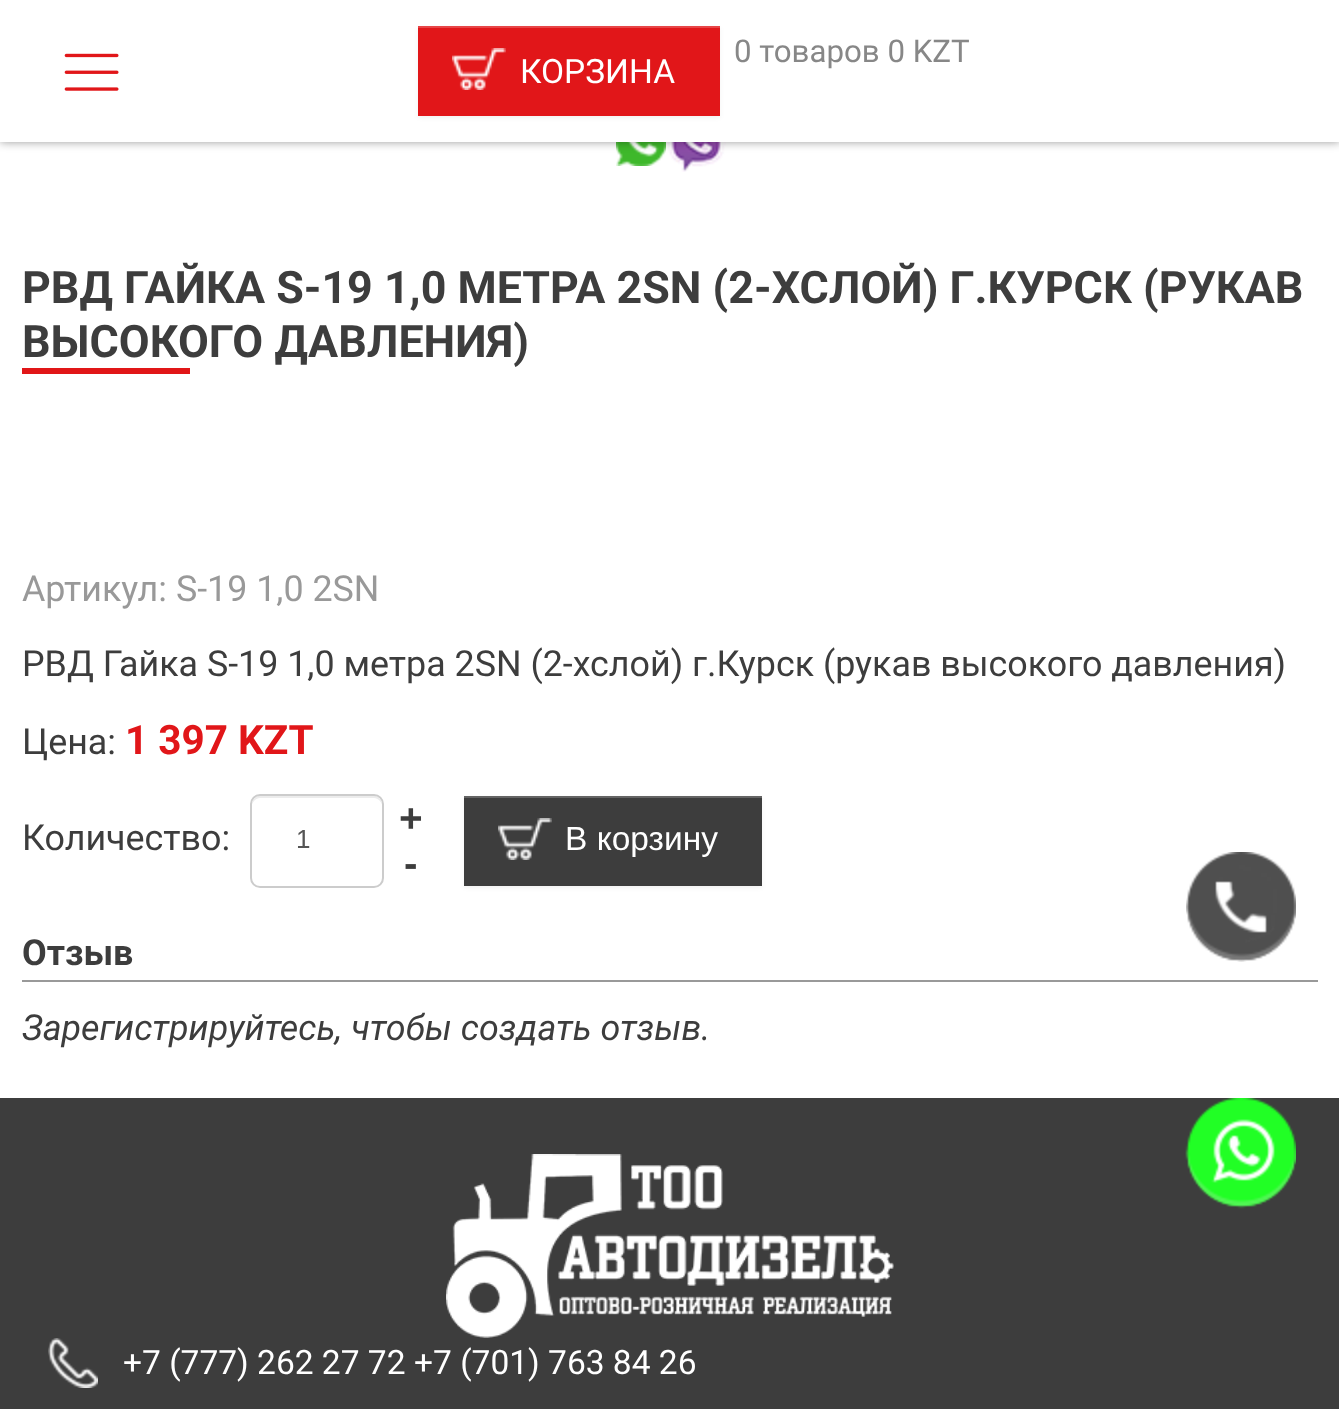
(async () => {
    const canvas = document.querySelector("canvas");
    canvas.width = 1339;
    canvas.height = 1409;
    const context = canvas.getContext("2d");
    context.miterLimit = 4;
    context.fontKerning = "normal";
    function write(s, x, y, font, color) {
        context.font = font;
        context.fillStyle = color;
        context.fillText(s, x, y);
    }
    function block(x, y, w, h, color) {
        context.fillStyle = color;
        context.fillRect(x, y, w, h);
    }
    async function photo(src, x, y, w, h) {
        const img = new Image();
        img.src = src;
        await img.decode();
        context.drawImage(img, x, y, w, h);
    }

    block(0, 0, 1339, 1409, "rgb(255, 255, 255)");
    await photo("media/3.png", 616, 142, 50, 24);
    await photo("media/4.png", 668, 142, 58, 30);
    context.fillStyle = "rgba(0, 0, 0, 0.4)";
    context.filter = "blur(5px)";
    context.beginPath();
    context.rect(0, 0, 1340, 142);
    context.fill();
    context.filter = "none";
    block(0, 0, 1339, 142, "rgb(255, 255, 255)");
    await photo("media/1.png", 64, 53, 55, 38);
    context.fillStyle = "rgba(0, 0, 0, 0.05)";
    context.filter = "blur(2px)";
    context.beginPath();
    context.rect(418, 28, 302, 90);
    context.fill();
    context.filter = "none";
    block(418, 28, 302, 88, "rgb(225, 22, 25)");
    await photo("media/2.png", 452, 48, 54, 42);
    block(418, 26, 302, 2, "rgb(231, 69, 71)");
    write("КОРЗИНА", 520, 83, "33.5px Roboto", "rgb(255, 255, 255)");
    write("0 товаров 0 KZT", 734, 62, "31.25px Roboto", "rgb(135, 135, 135)");
    write("РВД ГАЙКА S-19 1,0 МЕТРА 2SN (2-ХСЛОЙ) Г.КУРСК (РУКАВ", 22, 303, "bold 44.8px Roboto", "rgb(61, 61, 61)");
    write("ВЫСОКОГО ДАВЛЕНИЯ)", 22, 357, "bold 44.8px Roboto", "rgb(61, 61, 61)");
    block(22, 368, 168, 6, "rgb(225, 22, 24)");
    write("Артикул: S-19 1,0 2SN", 22, 601, "35.85px Roboto", "rgb(153, 153, 153)");
    write("РВД Гайка S-19 1,0 метра 2SN (2-хслой) г.Курск (рукав высокого давления)", 22, 676, "35.85px Roboto", "rgb(61, 61, 61)");
    write("Цена:", 22, 754, "35.85px Roboto", "rgb(61, 61, 61)");
    write("1 397 KZT", 125, 754, "bold 40.5px Roboto", "rgb(225, 22, 25)");
    write("Количество:", 22, 850, "35.85px Roboto", "rgb(61, 61, 61)");
    write("+", 399, 832, "bold 40.5px Liberation Sans", "rgb(61, 61, 61)");
    context.fillStyle = "rgb(236, 236, 236)";
    context.beginPath();
    context.moveTo(260, 798);
    context.lineTo(374, 798);
    context.bezierCurveTo(378, 798, 382, 802, 382, 806);
    context.bezierCurveTo(382, 791, 366, 796, 355, 796);
    context.lineTo(279, 796);
    context.bezierCurveTo(268, 796, 252, 791, 252, 806);
    context.bezierCurveTo(252, 802, 256, 798, 260, 798);
    context.closePath();
    context.fill();
    context.beginPath();
    context.roundRect(251, 795, 132, 92, 9);
    context.strokeStyle = "rgb(204, 204, 204)";
    context.lineWidth = 2;
    context.stroke();
    write("1", 296, 848, "26px Liberation Sans", "rgb(85, 85, 85)");
    write("-", 404, 877, "bold 40.5px Liberation Sans", "rgb(61, 61, 61)");
    context.fillStyle = "rgba(0, 0, 0, 0.05)";
    context.filter = "blur(2px)";
    context.beginPath();
    context.rect(464, 798, 298, 90);
    context.fill();
    context.filter = "none";
    block(464, 798, 298, 88, "rgb(61, 61, 61)");
    await photo("media/5.png", 498, 818, 54, 42);
    block(464, 796, 298, 2, "rgb(100, 100, 100)");
    write("В корзину", 565, 850, "33.5px Liberation Sans", "rgb(255, 255, 255)");
    block(22, 980, 1296, 2, "rgb(153, 153, 153)");
    write("Отзыв", 22, 965, "bold 35.85px Roboto", "rgb(61, 61, 61)");
    write("Зарегистрируйтесь, чтобы создать отзыв.", 22, 1040, "italic 35.85px Roboto", "rgb(61, 61, 61)");
    block(0, 1098, 1339, 311, "rgb(61, 61, 61)");
    await photo("media/6.png", 1186, 852, 110, 110);
    await photo("media/7.png", 1185, 1098, 111, 111);
    await photo("media/8.png", 446, 1154, 448, 184);
    await photo("media/9.png", 48, 1338, 50, 50);
    write("+7 (777) 262 27 72", 123, 1374, "33.5px Roboto", "rgb(255, 255, 255)");
    write("+7 (701) 763 84 26", 414, 1374, "33.5px Roboto", "rgb(255, 255, 255)");
})();
